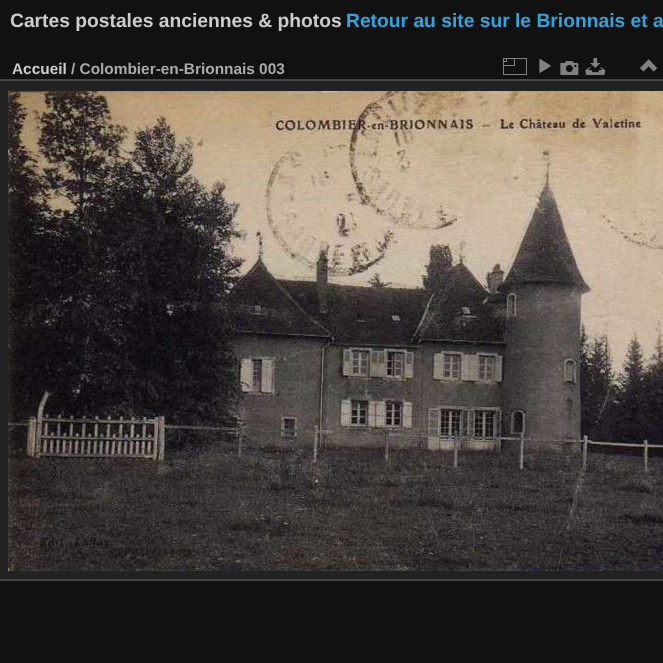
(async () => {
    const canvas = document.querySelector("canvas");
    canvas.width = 663;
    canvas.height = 663;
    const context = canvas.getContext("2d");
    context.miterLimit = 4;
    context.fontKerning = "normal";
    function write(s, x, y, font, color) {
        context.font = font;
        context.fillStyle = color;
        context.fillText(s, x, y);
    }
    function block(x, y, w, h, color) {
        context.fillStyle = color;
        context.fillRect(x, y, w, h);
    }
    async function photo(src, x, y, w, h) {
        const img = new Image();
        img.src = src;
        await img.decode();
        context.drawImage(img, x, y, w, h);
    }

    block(0, 0, 663, 663, "rgb(17, 17, 17)");
    write("Cartes postales anciennes & photos", 10, 27, "bold 19.25px Liberation Sans", "rgb(204, 204, 204)");
    write("Retour au site sur le Brionnais et a", 346, 27, "bold 19.25px Liberation Sans", "rgb(49, 163, 221)");
    block(0, 81, 663, 498, "rgb(34, 34, 34)");
    block(0, 579, 663, 2, "rgb(68, 68, 68)");
    block(0, 79, 663, 2, "rgb(68, 68, 68)");
    write("Accueil", 12, 74, "bold 15.4px Liberation Sans", "rgb(204, 204, 204)");
    write("/ Colombier-en-Brionnais 003", 71, 74, "bold 15.4px Liberation Sans", "rgb(170, 170, 170)");
    await photo("media/1.png", 503, 58, 24, 17);
    await photo("media/2.png", 539, 59, 12, 14);
    await photo("media/3.png", 560, 61, 19, 14);
    await photo("media/4.png", 585, 58, 21, 17);
    await photo("media/5.png", 640, 59, 17, 13);
    await photo("media/6.png", 8, 91, 655, 480);
})();
